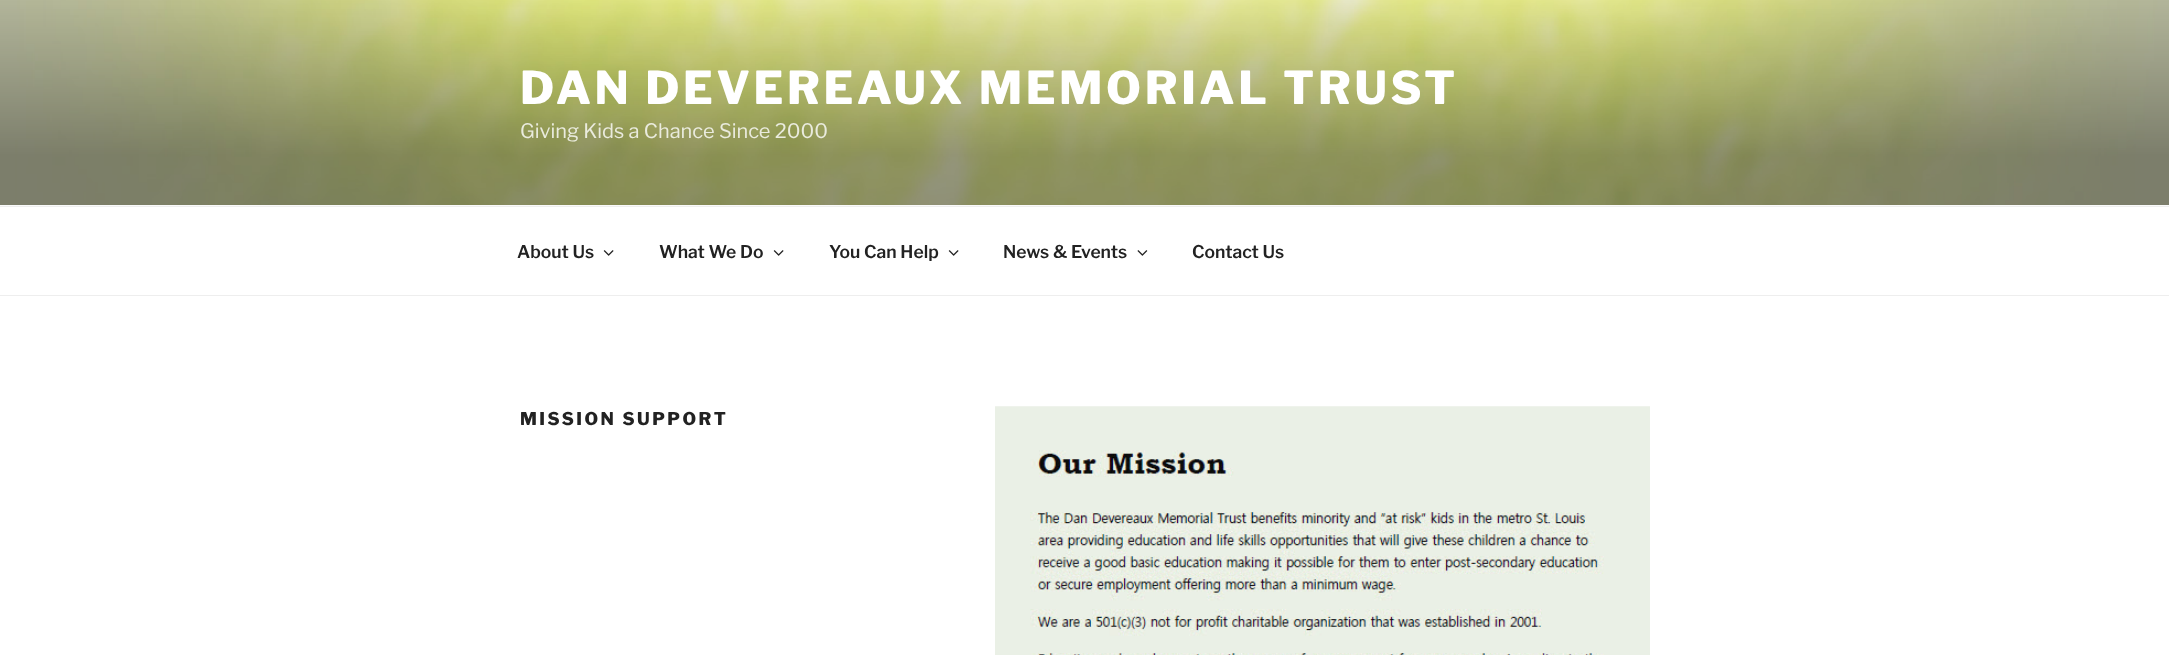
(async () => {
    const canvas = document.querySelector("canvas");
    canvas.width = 2169;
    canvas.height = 655;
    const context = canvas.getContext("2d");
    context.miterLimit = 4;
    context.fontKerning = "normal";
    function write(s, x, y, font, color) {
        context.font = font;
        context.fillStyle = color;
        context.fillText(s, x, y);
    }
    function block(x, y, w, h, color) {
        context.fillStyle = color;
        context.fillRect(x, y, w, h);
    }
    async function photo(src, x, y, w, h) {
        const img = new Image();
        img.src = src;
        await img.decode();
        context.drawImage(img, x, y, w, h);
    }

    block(0, 0, 2169, 655, "rgb(255, 255, 255)");
    block(0, 205, 2169, 1, "rgb(250, 250, 250)");
    await photo("media/1.png", 0, 0, 2169, 205);
    context.letterSpacing = "3.6px";
    write("DAN DEVEREAUX MEMORIAL TRUST", 520, 104, "800 45px Libre Franklin", "rgb(255, 255, 255)");
    context.letterSpacing = "0px";
    write("Giving Kids a Chance Since 2000", 520, 138, "20px Libre Franklin", "rgb(234, 235, 222)");
    block(0, 206, 2169, 1, "rgb(238, 238, 238)");
    block(0, 295, 2169, 1, "rgb(238, 238, 238)");
    write("About Us", 517, 258, "600 17.5px Libre Franklin", "rgb(34, 34, 34)");
    await photo("media/2.png", 603, 250, 11, 6);
    write("What We Do", 659, 258, "600 17.5px Libre Franklin", "rgb(34, 34, 34)");
    await photo("media/2.png", 773, 250, 11, 6);
    write("You Can Help", 829, 258, "600 17.5px Libre Franklin", "rgb(34, 34, 34)");
    await photo("media/2.png", 948, 250, 11, 6);
    write("News & Events", 1003, 258, "600 17.5px Libre Franklin", "rgb(34, 34, 34)");
    await photo("media/3.png", 1137, 250, 11, 6);
    write("Contact Us", 1192, 258, "600 17.5px Libre Franklin", "rgb(34, 34, 34)");
    context.letterSpacing = "2.5px";
    write("MISSION SUPPORT", 520, 425, "800 17.5px Libre Franklin", "rgb(34, 34, 34)");
    await photo("media/4.png", 995, 406, 655, 249);
})();
